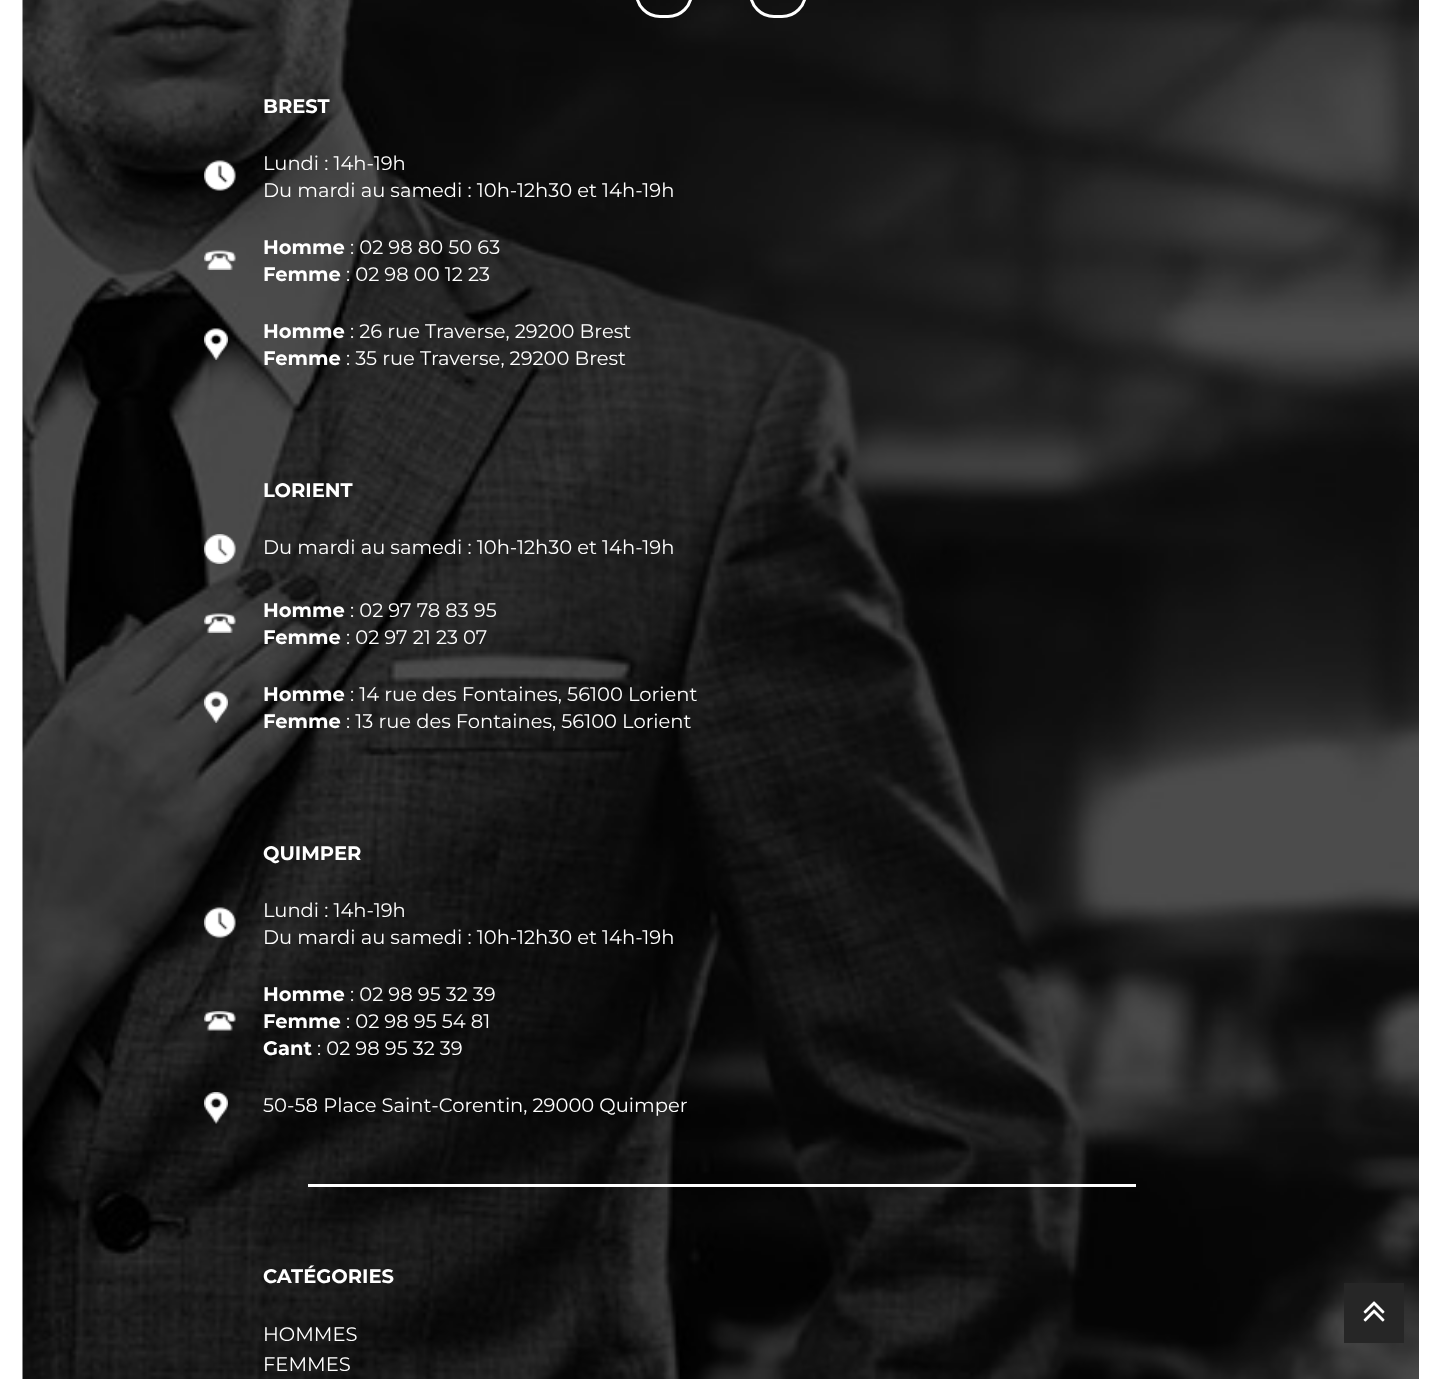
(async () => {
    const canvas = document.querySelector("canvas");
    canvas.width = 1441;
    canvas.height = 1379;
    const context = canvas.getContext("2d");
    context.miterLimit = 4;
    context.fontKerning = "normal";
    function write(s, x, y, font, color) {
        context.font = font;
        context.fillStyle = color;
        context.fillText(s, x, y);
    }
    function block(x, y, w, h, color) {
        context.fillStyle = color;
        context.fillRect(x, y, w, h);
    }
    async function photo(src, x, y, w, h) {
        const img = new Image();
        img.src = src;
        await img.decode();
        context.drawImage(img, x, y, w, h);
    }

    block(0, 0, 1441, 1379, "rgb(255, 255, 255)");
    await photo("media/1.png", 22, 0, 1397, 1379);
    context.beginPath();
    context.roundRect(636.5, -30.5, 55, 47, 27.5);
    context.strokeStyle = "rgb(255, 255, 255)";
    context.lineWidth = 3;
    context.stroke();
    context.beginPath();
    context.roundRect(750.5, -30.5, 55, 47, 27.5);
    context.stroke();
    write("BREST", 263, 113, "bold 19.5px Montserrat", "rgb(255, 255, 255)");
    await photo("media/2.png", 204, 160, 32, 31);
    write("Lundi : 14h-19h", 263, 170, "19.5px Montserrat", "rgb(255, 255, 255)");
    write("Du mardi au samedi : 10h-12h30 et 14h-19h", 263, 197, "19.5px Montserrat", "rgb(255, 255, 255)");
    await photo("media/3.png", 204, 250, 32, 20);
    write("Homme", 263, 254, "bold 19.5px Montserrat", "rgb(255, 255, 255)");
    write(": 02 98 80 50 63", 350, 254, "19.5px Montserrat", "rgb(255, 255, 255)");
    write("Femme", 263, 281, "bold 19.5px Montserrat", "rgb(255, 255, 255)");
    write(": 02 98 00 12 23", 346, 281, "19.5px Montserrat", "rgb(255, 255, 255)");
    await photo("media/4.png", 204, 328, 24, 32);
    write("Homme", 263, 338, "bold 19.5px Montserrat", "rgb(255, 255, 255)");
    write(": 26 rue Traverse, 29200 Brest", 350, 338, "19.5px Montserrat", "rgb(255, 255, 255)");
    write("Femme", 263, 365, "bold 19.5px Montserrat", "rgb(255, 255, 255)");
    write(": 35 rue Traverse, 29200 Brest", 346, 365, "19.5px Montserrat", "rgb(255, 255, 255)");
    write("LORIENT", 263, 497, "bold 19.5px Montserrat", "rgb(255, 255, 255)");
    await photo("media/5.png", 204, 534, 32, 30);
    write("Du mardi au samedi : 10h-12h30 et 14h-19h", 263, 554, "19.5px Montserrat", "rgb(255, 255, 255)");
    await photo("media/6.png", 204, 613, 32, 20);
    write("Homme", 263, 617, "bold 19.5px Montserrat", "rgb(255, 255, 255)");
    write(": 02 97 78 83 95", 350, 617, "19.5px Montserrat", "rgb(255, 255, 255)");
    write("Femme", 263, 644, "bold 19.5px Montserrat", "rgb(255, 255, 255)");
    write(": 02 97 21 23 07", 346, 644, "19.5px Montserrat", "rgb(255, 255, 255)");
    await photo("media/7.png", 204, 691, 24, 32);
    write("Homme", 263, 701, "bold 19.5px Montserrat", "rgb(255, 255, 255)");
    write(": 14 rue des Fontaines, 56100 Lorient", 350, 701, "19.5px Montserrat", "rgb(255, 255, 255)");
    write("Femme", 263, 728, "bold 19.5px Montserrat", "rgb(255, 255, 255)");
    write(": 13 rue des Fontaines, 56100 Lorient", 346, 728, "19.5px Montserrat", "rgb(255, 255, 255)");
    write("QUIMPER", 263, 860, "bold 19.5px Montserrat", "rgb(255, 255, 255)");
    await photo("media/8.png", 204, 907, 32, 31);
    write("Lundi : 14h-19h", 263, 917, "19.5px Montserrat", "rgb(255, 255, 255)");
    write("Du mardi au samedi : 10h-12h30 et 14h-19h", 263, 944, "19.5px Montserrat", "rgb(255, 255, 255)");
    await photo("media/9.png", 204, 1011, 32, 20);
    write("Homme", 263, 1001, "bold 19.5px Montserrat", "rgb(255, 255, 255)");
    write(": 02 98 95 32 39", 350, 1001, "19.5px Montserrat", "rgb(255, 255, 255)");
    write("Femme", 263, 1028, "bold 19.5px Montserrat", "rgb(255, 255, 255)");
    write(": 02 98 95 54 81", 346, 1028, "19.5px Montserrat", "rgb(255, 255, 255)");
    write("Gant", 263, 1055, "bold 19.5px Montserrat", "rgb(255, 255, 255)");
    write(": 02 98 95 32 39", 317, 1055, "19.5px Montserrat", "rgb(255, 255, 255)");
    await photo("media/10.png", 204, 1092, 24, 32);
    write("50-58 Place Saint-Corentin, 29000 Quimper", 263, 1112, "19.5px Montserrat", "rgb(255, 255, 255)");
    block(308, 1184, 828, 3, "rgb(255, 255, 255)");
    write("CATÉGORIES", 263, 1283, "bold 19.5px Montserrat", "rgb(255, 255, 255)");
    write("HOMMES", 263, 1341, "19.5px Montserrat", "rgb(255, 255, 255)");
    write("FEMMES", 263, 1371, "19.5px Montserrat", "rgb(255, 255, 255)");
    block(1344, 1283, 60, 60, "rgb(38, 38, 38)");
    await photo("media/11.png", 1363, 1301, 22, 21);
})();
